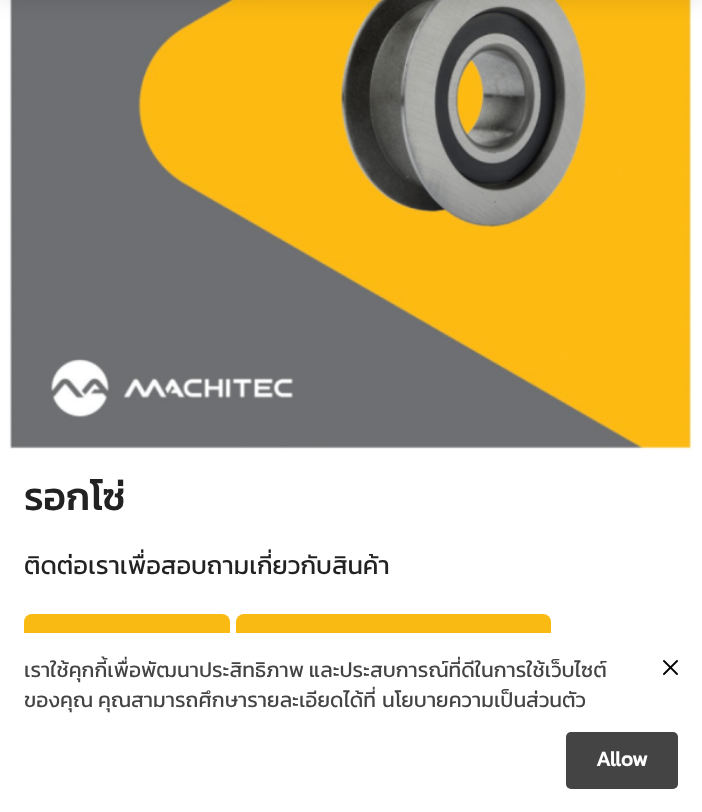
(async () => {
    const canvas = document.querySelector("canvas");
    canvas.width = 702;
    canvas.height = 812;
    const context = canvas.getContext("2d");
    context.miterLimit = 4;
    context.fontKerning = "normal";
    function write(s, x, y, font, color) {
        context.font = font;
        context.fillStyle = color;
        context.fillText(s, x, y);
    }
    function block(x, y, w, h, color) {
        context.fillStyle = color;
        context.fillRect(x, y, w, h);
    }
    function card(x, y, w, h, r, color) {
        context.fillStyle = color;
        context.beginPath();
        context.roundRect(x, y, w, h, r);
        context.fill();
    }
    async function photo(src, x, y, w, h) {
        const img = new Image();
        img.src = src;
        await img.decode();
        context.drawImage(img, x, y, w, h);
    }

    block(0, 0, 702, 812, "rgb(255, 255, 255)");
    await photo("media/1.png", 9, 0, 685, 451);
    context.fillStyle = "rgba(0, 0, 0, 0.1)";
    context.filter = "blur(10.5px)";
    context.beginPath();
    context.rect(0, -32, 702, 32);
    context.fill();
    context.filter = "none";
    write("รอกโซ่", 24, 510, "500 39px Kanit", "rgb(34, 34, 34)");
    write("ติดต่อเราเพื่อสอบถามเกี่ยวกับสินค้า", 24, 574, "25.5px Kanit", "rgb(34, 34, 34)");
    card(24, 614, 206, 54, 8, "rgb(249, 186, 19)");
    card(236, 614, 315, 54, 8, "rgb(249, 186, 19)");
    block(24, 633, 527, 35, "rgb(255, 255, 255)");
    write("เราใช้คุกกี้เพื่อพัฒนาประสิทธิภาพ และประสบการณ์ที่ดีในการใช้เว็บไซต์", 24, 677, "21px Kanit", "rgb(68, 68, 68)");
    write("ของคุณ คุณสามารถศึกษารายละเอียดได้ที่", 24, 707, "21px Kanit", "rgb(68, 68, 68)");
    write("นโยบายความเป็นส่วนตัว", 382, 707, "21px Kanit", "rgb(68, 68, 68)");
    await photo("media/2.png", 663, 660, 15, 15);
    card(566, 732, 112, 57, 5, "rgb(68, 68, 68)");
    write("Allow", 596, 766, "bold 21px Kanit", "rgb(255, 255, 255)");
})();
